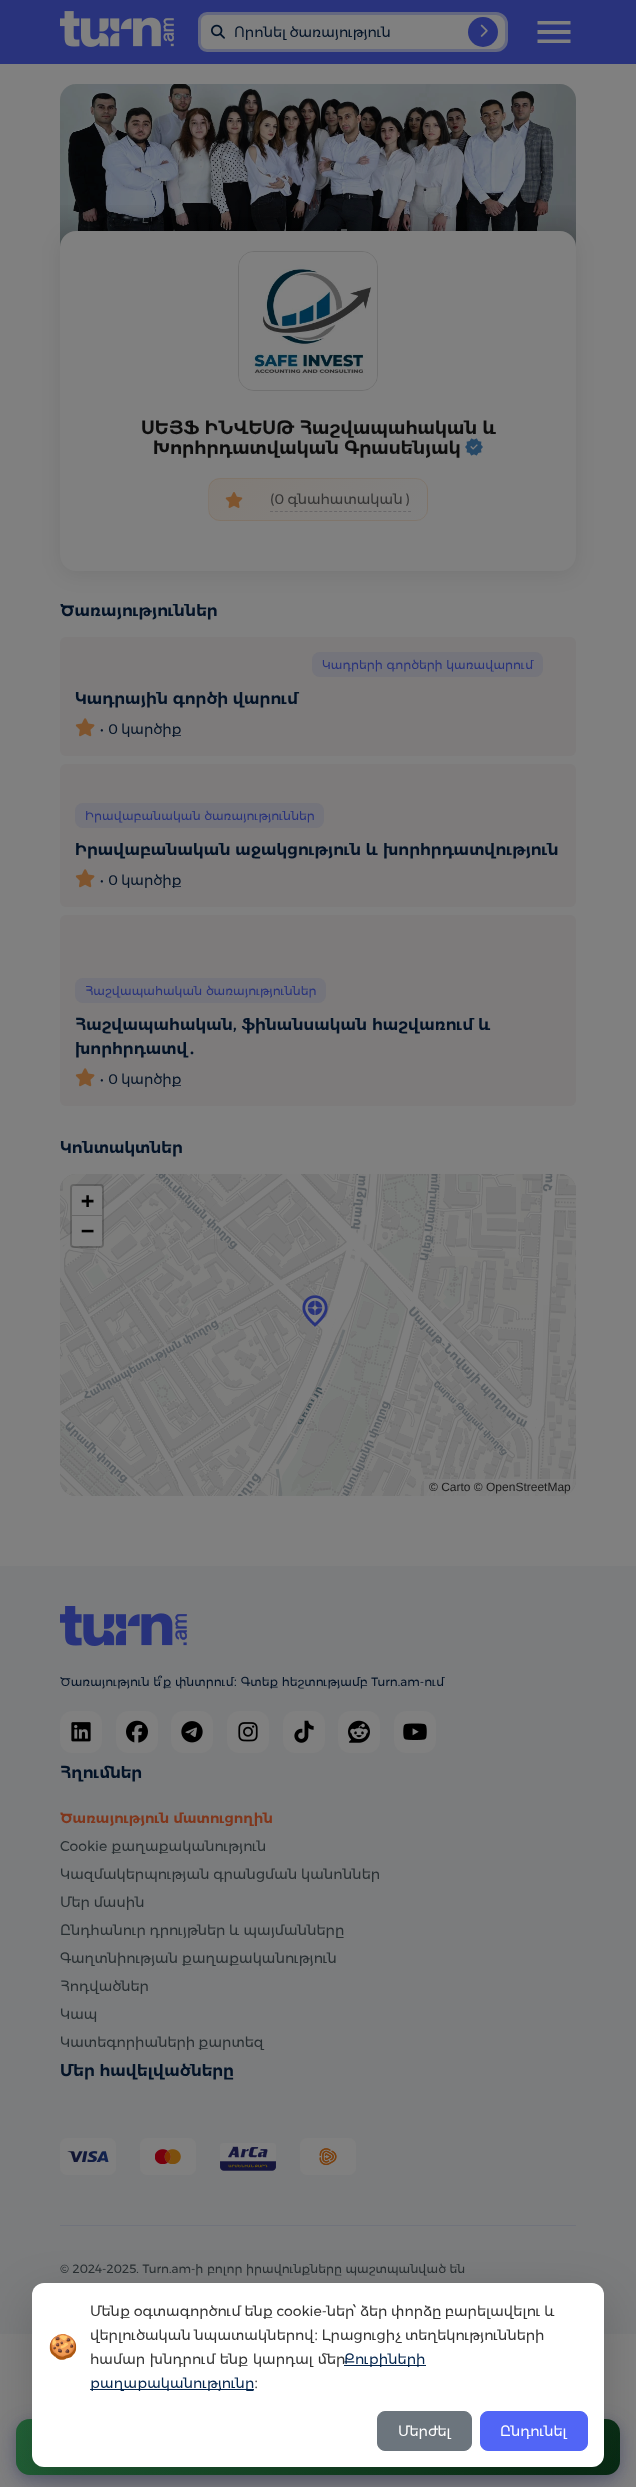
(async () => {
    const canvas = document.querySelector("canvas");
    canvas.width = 636;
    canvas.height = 2487;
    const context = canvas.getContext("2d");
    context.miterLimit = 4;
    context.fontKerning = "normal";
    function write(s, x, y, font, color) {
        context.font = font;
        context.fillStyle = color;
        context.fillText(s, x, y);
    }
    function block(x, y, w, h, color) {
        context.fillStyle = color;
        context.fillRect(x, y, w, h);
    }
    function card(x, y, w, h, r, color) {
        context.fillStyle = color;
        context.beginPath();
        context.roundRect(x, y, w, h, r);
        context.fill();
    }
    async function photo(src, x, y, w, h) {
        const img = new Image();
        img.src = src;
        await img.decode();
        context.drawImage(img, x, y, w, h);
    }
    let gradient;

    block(0, 0, 636, 2487, "rgb(128, 128, 128)");
    block(0, 0, 636, 64, "rgb(41, 51, 124)");
    await photo("media/1.png", 60, 11, 114, 36);
    context.fillStyle = "rgb(128, 128, 128)";
    context.beginPath();
    context.roundRect(199.5, 13.5, 307, 37, [7.5, 10.5, 10.5, 7.5]);
    context.fill();
    context.strokeStyle = "rgb(100, 104, 128)";
    context.lineWidth = 3;
    context.stroke();
    await photo("media/2.png", 211, 24, 14, 15);
    context.wordSpacing = "-1px";
    write("Որոնել ծառայություն", 234, 37, "14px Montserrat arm", "rgb(3, 19, 39)");
    context.fillStyle = "rgb(41, 51, 124)";
    context.beginPath();
    context.arc(483, 32, 15, 0, Math.PI * 2);
    context.fill();
    await photo("media/3.png", 480, 24, 8, 13);
    context.fillStyle = "rgb(128, 128, 128)";
    context.beginPath();
    context.moveTo(537.5, 43);
    context.lineTo(537.5, 39.5);
    context.lineTo(570.5, 39.5);
    context.lineTo(570.5, 43);
    context.closePath();
    context.moveTo(537.5, 34);
    context.lineTo(537.5, 30);
    context.lineTo(570.5, 30);
    context.lineTo(570.5, 34);
    context.closePath();
    context.moveTo(537.5, 24.5);
    context.lineTo(537.5, 21);
    context.lineTo(570.5, 21);
    context.lineTo(570.5, 24.5);
    context.closePath();
    context.fill();
    await photo("media/4.png", 60, 84, 516, 163);
    gradient = context.createLinearGradient(318, 291, 318, 200);
    gradient.addColorStop(0, "rgba(0, 0, 0, 0.4)");
    gradient.addColorStop(1, "rgba(0, 0, 0, 0)");
    context.fillStyle = gradient;
    context.fillRect(60, 205, 516, 42);
    context.fillStyle = "rgba(0, 0, 0, 0.08)";
    context.filter = "blur(10px)";
    context.beginPath();
    context.roundRect(60, 235, 516, 340, 16);
    context.fill();
    context.filter = "none";
    card(60, 231, 516, 340, 16, "rgb(128, 128, 128)");
    context.beginPath();
    context.roundRect(238.5, 251.5, 139, 139, 15.5);
    context.strokeStyle = "rgb(112, 112, 112)";
    context.lineWidth = 1;
    context.stroke();
    await photo("media/5.png", 239, 252, 138, 138);
    context.wordSpacing = "0px";
    write("ՍԵՅՖ ԻՆՎԵՍԹ Հաշվապահական և", 141, 434, "600 18px Montserrat arm", "rgb(13, 13, 13)");
    write("Խորհրդատվական Գրասենյակ", 153, 454, "600 18px Montserrat arm", "rgb(13, 13, 13)");
    await photo("media/6.png", 465, 438, 18, 18);
    context.save();
    context.beginPath();
    context.roundRect(208, 478, 220, 43, 12);
    context.clip();
    gradient = context.createLinearGradient(253, 394, 383, 523);
    gradient.addColorStop(0, "rgb(128, 123, 118)");
    gradient.addColorStop(1, "rgb(128, 128, 128)");
    context.fillStyle = gradient;
    context.fillRect(209, 478, 218, 1);
    gradient = context.createLinearGradient(253, 435, 383, 564);
    gradient.addColorStop(0, "rgb(128, 123, 118)");
    gradient.addColorStop(1, "rgb(128, 128, 128)");
    context.fillStyle = gradient;
    context.fillRect(209, 479, 218, 41);
    gradient = context.createLinearGradient(471, 435, 601, 564);
    gradient.addColorStop(0, "rgb(128, 123, 118)");
    gradient.addColorStop(1, "rgb(128, 128, 128)");
    context.fillStyle = gradient;
    context.fillRect(427, 479, 1, 41);
    gradient = context.createLinearGradient(253, 476, 383, 605);
    gradient.addColorStop(0, "rgb(128, 123, 118)");
    gradient.addColorStop(1, "rgb(128, 128, 128)");
    context.fillStyle = gradient;
    context.fillRect(209, 520, 218, 1);
    context.restore();
    context.beginPath();
    context.roundRect(208.5, 478.5, 219, 42, 11.5);
    context.strokeStyle = "rgba(126, 85, 47, 0.2)";
    context.stroke();
    await photo("media/7.png", 225, 492, 18, 16);
    context.beginPath();
    context.moveTo(270, 511.5);
    context.lineTo(411, 511.5);
    context.strokeStyle = "rgba(67, 67, 75, 0.4)";
    context.setLineDash([3, 1.93]);
    context.stroke();
    context.wordSpacing = "-1px";
    write("(0 գնահատական )", 270, 504, "14px Montserrat arm", "rgb(51, 51, 51)");
    context.wordSpacing = "0px";
    write("Ծառայություններ", 60, 616, "600 16px Montserrat arm", "rgb(3, 19, 39)");
    card(60, 637, 516, 119, 6, "rgb(125, 123, 123)");
    card(312, 652, 231, 25, 8, "rgb(116, 116, 123)");
    write("Կադրերի գործերի կառավարում", 322, 669, "12px Montserrat arm", "rgb(41, 51, 124)");
    write("Կադրային գործի վարում", 75, 704, "600 16px Montserrat arm", "rgb(3, 19, 39)");
    await photo("media/8.png", 75, 718, 20, 19);
    write("•", 100, 734, "14px Montserrat arm", "rgb(3, 19, 39)");
    context.wordSpacing = "-1px";
    write("0 կարծիք", 108, 734, "14px Montserrat arm", "rgb(3, 19, 39)");
    card(60, 764, 516, 143, 6, "rgb(125, 123, 123)");
    card(75, 803, 249, 25, 8, "rgb(116, 116, 123)");
    context.wordSpacing = "0px";
    write("Իրավաբանական ծառայություններ", 85, 820, "12px Montserrat arm", "rgb(41, 51, 124)");
    write("Իրավաբանական աջակցություն և խորհրդատվություն", 75, 855, "600 16px Montserrat arm", "rgb(3, 19, 39)");
    await photo("media/8.png", 75, 869, 20, 19);
    write("•", 100, 885, "14px Montserrat arm", "rgb(3, 19, 39)");
    context.wordSpacing = "-1px";
    write("0 կարծիք", 108, 885, "14px Montserrat arm", "rgb(3, 19, 39)");
    card(60, 915, 516, 191, 6, "rgb(125, 123, 123)");
    card(75, 978, 251, 25, 8, "rgb(116, 116, 123)");
    context.wordSpacing = "0px";
    write("Հաշվապահական ծառայություններ", 85, 995, "12px Montserrat arm", "rgb(41, 51, 124)");
    write("Հաշվապահական, ֆինանսական հաշվառում և", 75, 1030, "600 16px Montserrat arm", "rgb(3, 19, 39)");
    write("խորհրդատվ", 75, 1054, "600 16px Montserrat arm", "rgb(3, 19, 39)");
    write("․", 188, 1054, "bold 16px Noto Sans", "rgb(3, 19, 39)");
    await photo("media/8.png", 75, 1068, 20, 19);
    write("•", 100, 1084, "14px Montserrat arm", "rgb(3, 19, 39)");
    context.wordSpacing = "-1px";
    write("0 կարծիք", 108, 1084, "14px Montserrat arm", "rgb(3, 19, 39)");
    context.wordSpacing = "0px";
    write("Կոնտակտներ", 60, 1153, "600 16px Montserrat arm", "rgb(3, 19, 39)");
    card(60, 1174, 516, 322, 16, "rgb(111, 111, 111)");
    await photo("media/9.png", 60, 1174, 227, 131);
    await photo("media/10.png", 287, 1174, 256, 131);
    await photo("media/11.png", 543, 1174, 33, 131);
    await photo("media/12.png", 60, 1305, 227, 191);
    await photo("media/13.png", 287, 1305, 256, 191);
    await photo("media/14.png", 543, 1305, 33, 191);
    await photo("media/15.png", 302, 1295, 26, 32);
    context.beginPath();
    context.roundRect(71, 1185, 32, 62, 3);
    context.strokeStyle = "rgba(0, 0, 0, 0.2)";
    context.lineWidth = 2;
    context.setLineDash([]);
    context.stroke();
    context.fillStyle = "rgb(128, 128, 128)";
    context.beginPath();
    context.roundRect(72, 1186, 30, 30, [2, 2, 0, 0]);
    context.fill();
    block(72, 1215, 30, 1, "rgb(102, 102, 102)");
    write("+", 81, 1208, "bold 22px DejaVu Sans Mono", "rgb(0, 0, 0)");
    context.fillStyle = "rgb(128, 128, 128)";
    context.beginPath();
    context.roundRect(72, 1216, 30, 30, [0, 0, 2, 2]);
    context.fill();
    write("−", 81, 1238, "bold 22px DejaVu Sans Mono", "rgb(0, 0, 0)");
    context.fillStyle = "rgba(128, 128, 128, 0.8)";
    context.beginPath();
    context.roundRect(424, 1479, 152, 17, [0, 0, 16, 0]);
    context.fill();
    write("© Carto © OpenStreetMap", 429, 1491, "12px Liberation Sans", "rgb(26, 26, 26)");
    context.fillStyle = "rgba(0, 0, 0, 0.1)";
    context.filter = "blur(4px)";
    context.beginPath();
    context.roundRect(16, 2421, 604, 56, 14);
    context.fill();
    context.filter = "none";
    context.fillStyle = "rgba(41, 51, 124, 0.3)";
    context.filter = "blur(10px)";
    context.beginPath();
    context.roundRect(16, 2425, 604, 56, 14);
    context.fill();
    context.filter = "none";
    gradient = context.createLinearGradient(153, 2282, 483, 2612);
    gradient.addColorStop(0, "rgb(6, 89, 34)");
    gradient.addColorStop(1, "rgb(4, 39, 16)");
    context.fillStyle = gradient;
    context.beginPath();
    context.roundRect(16, 2419, 604, 56, 14);
    context.fill();
    gradient = context.createLinearGradient(153, 2282, 483, 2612);
    gradient.addColorStop(0, "rgba(128, 128, 128, 0.24)");
    gradient.addColorStop(1, "rgba(128, 128, 128, 0.03)");
    context.fillStyle = gradient;
    context.beginPath();
    context.roundRect(16, 2419, 604, 56, 14);
    context.fill();
    block(0, 1566, 636, 768, "rgb(123, 124, 125)");
    await photo("media/16.png", 60, 1606, 127, 40);
    write("Ծառայություն ե՞ք փնտրում։ Գտեք հեշտությամբ Turn.am-ում", 60, 1686, "12px Montserrat arm", "rgb(3, 19, 39)");
    card(60, 1711, 42, 42, 12, "rgb(128, 128, 128)");
    await photo("media/17.png", 71, 1722, 20, 20);
    card(116, 1711, 42, 42, 12, "rgb(128, 128, 128)");
    await photo("media/18.png", 126, 1720, 22, 23);
    card(171, 1711, 42, 42, 12, "rgb(128, 128, 128)");
    await photo("media/19.png", 181, 1721, 22, 22);
    card(227, 1711, 42, 42, 12, "rgb(128, 128, 128)");
    await photo("media/20.png", 238, 1722, 20, 20);
    card(283, 1711, 42, 42, 12, "rgb(128, 128, 128)");
    await photo("media/21.png", 294, 1720, 20, 23);
    card(338, 1711, 42, 42, 12, "rgb(128, 128, 128)");
    await photo("media/22.png", 348, 1720, 22, 23);
    card(394, 1711, 42, 42, 12, "rgb(128, 128, 128)");
    await photo("media/23.png", 403, 1723, 24, 17);
    write("Հղումներ", 60, 1778, "600 16px Montserrat arm", "rgb(3, 19, 39)");
    write("Ծառայություն մատուցողին", 60, 1823, "600 14px Montserrat arm", "rgb(128, 54, 27)");
    write("Cookie քաղաքականություն", 60, 1851, "14px Montserrat arm", "rgb(40, 47, 50)");
    context.wordSpacing = "-0.5px";
    write("Կազմակերպության գրանցման կանոններ", 60, 1879, "14px Montserrat arm", "rgb(40, 47, 50)");
    write("Մեր մասին", 60, 1907, "14px Montserrat arm", "rgb(40, 47, 50)");
    write("Ընդհանուր դրույթներ և պայմանները", 60, 1935, "14px Montserrat arm", "rgb(40, 47, 50)");
    write("Գաղտնիության քաղաքականություն", 60, 1963, "14px Montserrat arm", "rgb(40, 47, 50)");
    context.wordSpacing = "0px";
    write("Հոդվածներ", 60, 1991, "14px Montserrat arm", "rgb(40, 47, 50)");
    write("Կապ", 60, 2019, "14px Montserrat arm", "rgb(40, 47, 50)");
    context.wordSpacing = "-1px";
    write("Կատեգորիաների քարտեզ", 60, 2047, "14px Montserrat arm", "rgb(40, 47, 50)");
    context.wordSpacing = "0px";
    write("Մեր հավելվածները", 60, 2076, "600 16px Montserrat arm", "rgb(3, 19, 39)");
    await photo("media/24.png", 60, 2138, 56, 37);
    await photo("media/25.png", 140, 2138, 56, 37);
    await photo("media/26.png", 220, 2143, 56, 28);
    await photo("media/27.png", 300, 2138, 56, 37);
    block(60, 2225, 516, 1, "rgb(112, 115, 124)");
    write("© 2024-2025. Turn.am-ի բոլոր իրավունքները պաշտպանված են", 60, 2273, "12px Montserrat arm", "rgb(40, 47, 50)");
    context.fillStyle = "rgba(0, 0, 0, 0.18)";
    context.filter = "blur(24px)";
    context.beginPath();
    context.roundRect(32, 2299, 572, 184, 12);
    context.fill();
    context.filter = "none";
    card(32, 2283, 572, 184, 12, "rgb(255, 255, 255)");
    write("🍪", 48, 2355, "24px Noto Color Emoji", "rgb(51, 51, 51)");
    context.wordSpacing = "-0.5px";
    write("Մենք օգտագործում ենք cookie-ներ՝ ձեր փորձը բարելավելու և", 90, 2316, "14px Montserrat arm", "rgb(51, 51, 51)");
    write("վերլուծական նպատակներով։ Լրացուցիչ տեղեկությունների", 90, 2340, "14px Montserrat arm", "rgb(51, 51, 51)");
    context.wordSpacing = "0.5px";
    write("համար խնդրում ենք կարդալ մեր", 90, 2364, "14px Montserrat arm", "rgb(51, 51, 51)");
    block(344, 2365, 82, 1, "rgb(5, 38, 78)");
    context.wordSpacing = "0px";
    write("Քուքիների", 344, 2364, "14px Montserrat arm", "rgb(5, 38, 78)");
    block(90, 2389, 164, 1, "rgb(5, 38, 78)");
    write("քաղաքականությունը", 90, 2388, "14px Montserrat arm", "rgb(5, 38, 78)");
    write("։", 254, 2388, "14px Montserrat arm", "rgb(51, 51, 51)");
    context.fillStyle = "rgb(108, 117, 125)";
    context.beginPath();
    context.roundRect(377.5, 2411.5, 94, 39, 7.5);
    context.fill();
    context.strokeStyle = "rgb(108, 117, 125)";
    context.lineWidth = 1;
    context.stroke();
    write("Մերժել", 398, 2436, "14px Montserrat arm", "rgb(255, 255, 255)");
    context.fillStyle = "rgb(81, 101, 246)";
    context.beginPath();
    context.roundRect(480.5, 2411.5, 107, 39, 7.5);
    context.fill();
    context.strokeStyle = "rgb(81, 101, 246)";
    context.stroke();
    write("Ընդունել", 500, 2436, "14px Montserrat arm", "rgb(255, 255, 255)");
})();
